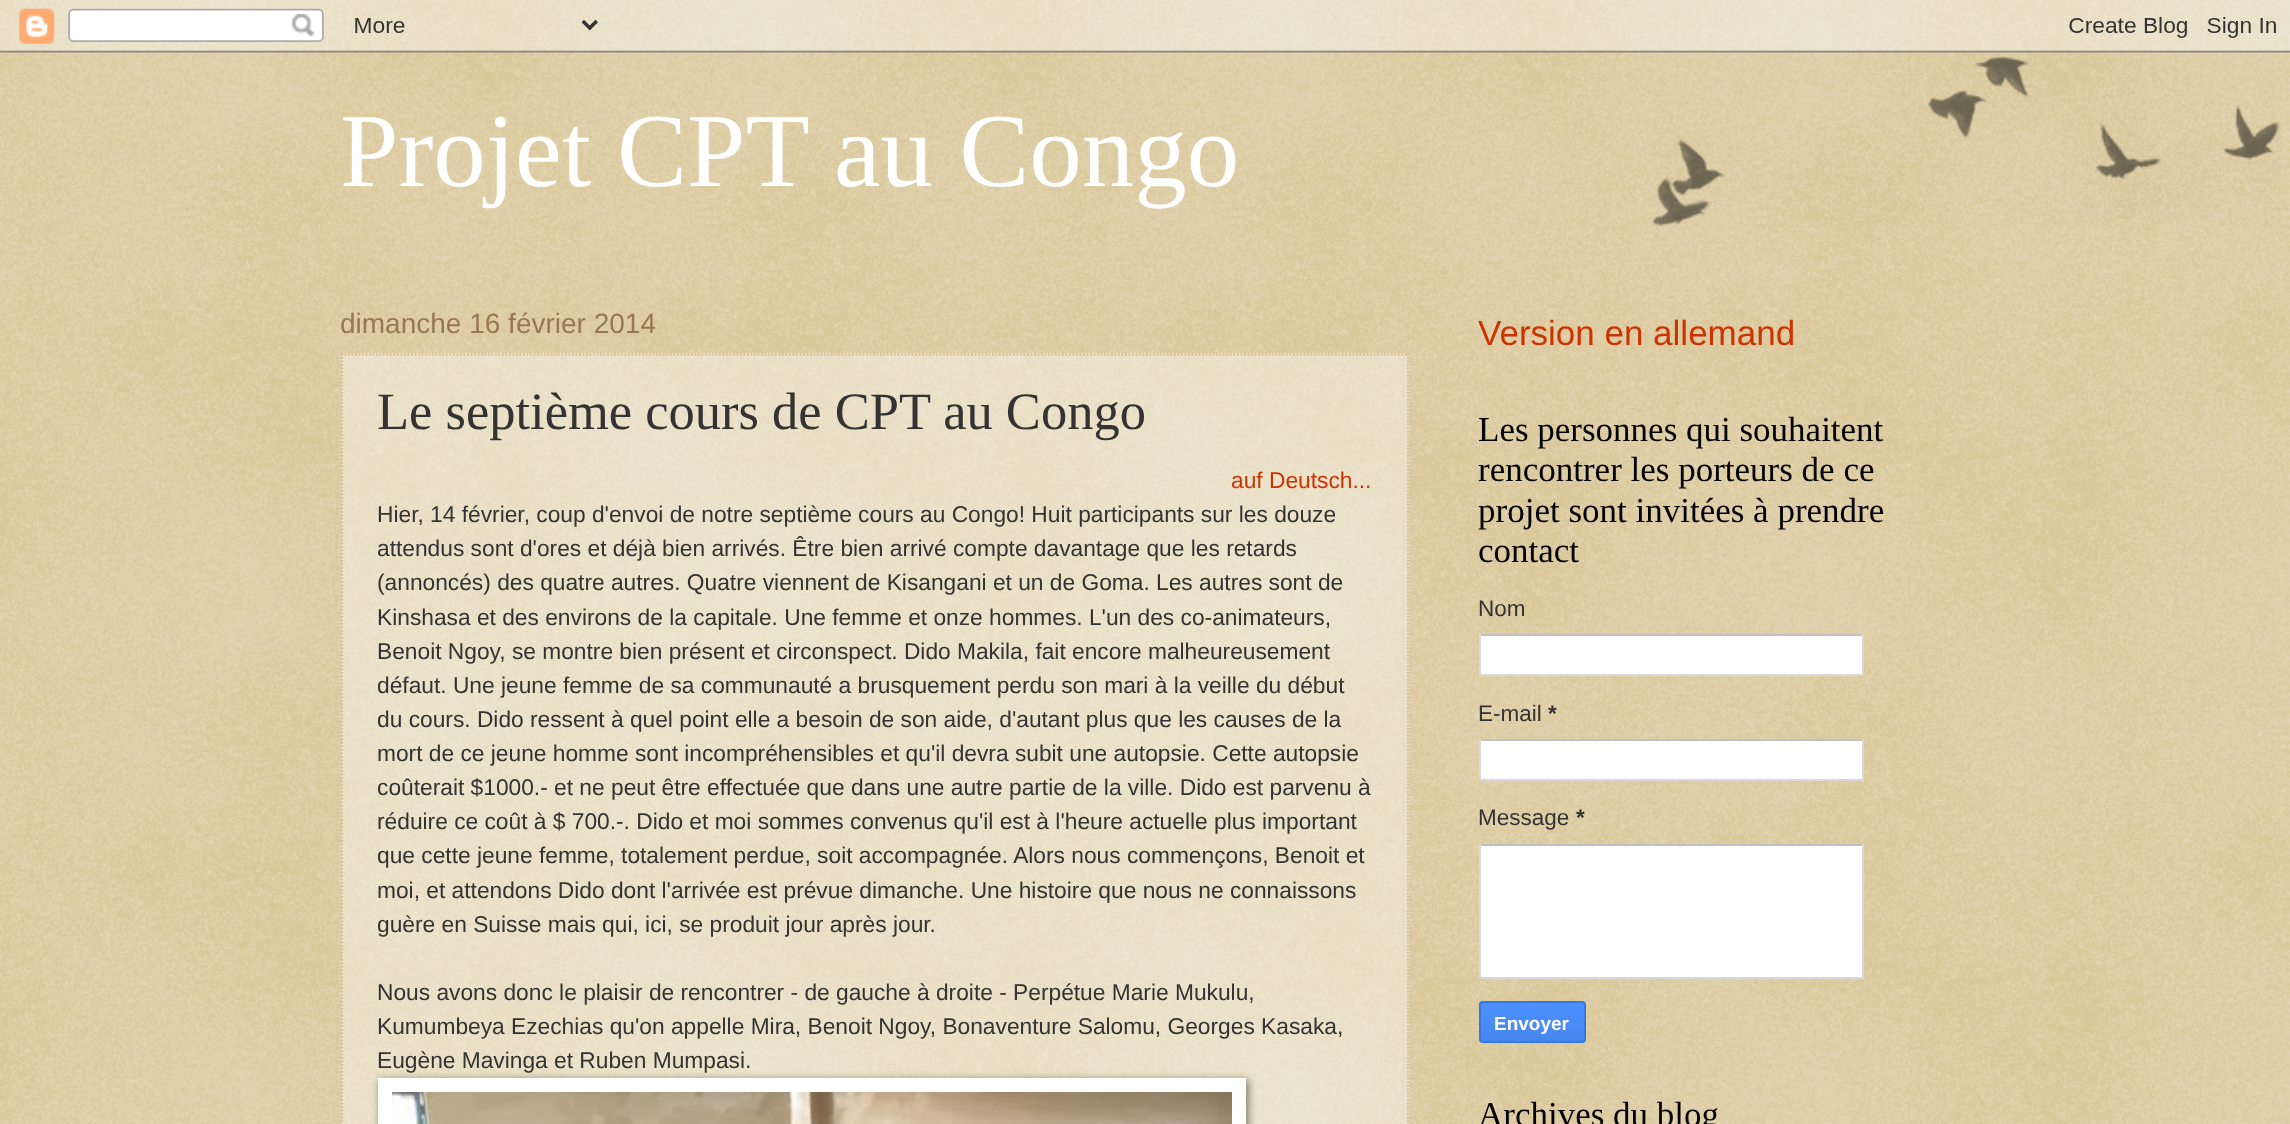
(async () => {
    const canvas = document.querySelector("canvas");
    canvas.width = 2290;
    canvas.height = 1124;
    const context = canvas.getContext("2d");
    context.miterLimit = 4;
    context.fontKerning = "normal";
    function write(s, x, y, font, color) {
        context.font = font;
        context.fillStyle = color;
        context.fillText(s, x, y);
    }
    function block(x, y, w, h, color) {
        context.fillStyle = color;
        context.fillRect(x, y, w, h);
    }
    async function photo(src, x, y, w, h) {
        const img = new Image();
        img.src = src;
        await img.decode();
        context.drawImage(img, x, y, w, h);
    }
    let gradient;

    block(0, 0, 2290, 1124, "rgb(192, 161, 84)");
    await photo("media/1.png", 0, 0, 2290, 1124);
    await photo("media/2.png", 0, 0, 2290, 53);
    write("Projet CPT au Congo", 340, 186, "105px Liberation Serif", "rgb(255, 255, 255)");
    write("dimanche 16 février 2014", 340, 333, "28px Liberation Sans", "rgb(153, 119, 85)");
    block(341, 353, 1068, 771, "rgba(255, 255, 255, 0.4)");
    context.beginPath();
    context.moveTo(341, 354.5);
    context.lineTo(1409, 354.5);
    context.strokeStyle = "rgb(204, 187, 153)";
    context.lineWidth = 1.8;
    context.setLineDash([1.75, 1.75]);
    context.stroke();
    context.beginPath();
    context.moveTo(1408, 353.5);
    context.lineTo(1408, 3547);
    context.stroke();
    context.beginPath();
    context.moveTo(342, 353.5);
    context.lineTo(342, 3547);
    context.stroke();
    write("Le septième cours de CPT au Congo", 377, 429, "52.5px Liberation Serif", "rgb(51, 51, 51)");
    write("auf Deutsch...", 1231, 488, "22.75px Liberation Sans", "rgb(204, 51, 0)");
    write("Hier, 14 février, coup d'envoi de notre septième cours au Congo! Huit participants sur les douze", 377, 522, "22.75px Liberation Sans", "rgb(51, 51, 51)");
    write("attendus sont d'ores et déjà bien arrivés. Être bien arrivé compte davantage que les retards", 377, 556, "22.75px Liberation Sans", "rgb(51, 51, 51)");
    write("(annoncés) des quatre autres. Quatre viennent de Kisangani et un de Goma. Les autres sont de", 377, 590, "22.75px Liberation Sans", "rgb(51, 51, 51)");
    write("Kinshasa et des environs de la capitale. Une femme et onze hommes. L'un des co-animateurs,", 377, 625, "22.75px Liberation Sans", "rgb(51, 51, 51)");
    write("Benoit Ngoy, se montre bien présent et circonspect. Dido Makila, fait encore malheureusement", 377, 659, "22.75px Liberation Sans", "rgb(51, 51, 51)");
    write("défaut. Une jeune femme de sa communauté a brusquement perdu son mari à la veille du début", 377, 693, "22.75px Liberation Sans", "rgb(51, 51, 51)");
    write("du cours. Dido ressent à quel point elle a besoin de son aide, d'autant plus que les causes de la", 377, 727, "22.75px Liberation Sans", "rgb(51, 51, 51)");
    write("mort de ce jeune homme sont incompréhensibles et qu'il devra subit une autopsie. Cette autopsie", 377, 761, "22.75px Liberation Sans", "rgb(51, 51, 51)");
    write("coûterait $1000.- et ne peut être effectuée que dans une autre partie de la ville. Dido est parvenu à", 377, 795, "22.75px Liberation Sans", "rgb(51, 51, 51)");
    write("réduire ce coût à $ 700.-. Dido et moi sommes convenus qu'il est à l'heure actuelle plus important", 377, 829, "22.75px Liberation Sans", "rgb(51, 51, 51)");
    write("que cette jeune femme, totalement perdue, soit accompagnée. Alors nous commençons, Benoit et", 377, 863, "22.75px Liberation Sans", "rgb(51, 51, 51)");
    write("moi, et attendons Dido dont l'arrivée est prévue dimanche. Une histoire que nous ne connaissons", 377, 898, "22.75px Liberation Sans", "rgb(51, 51, 51)");
    write("guère en Suisse mais qui, ici, se produit jour après jour.", 377, 932, "22.75px Liberation Sans", "rgb(51, 51, 51)");
    write("Nous avons donc le plaisir de rencontrer - de gauche à droite - Perpétue Marie Mukulu,", 377, 1000, "22.75px Liberation Sans", "rgb(51, 51, 51)");
    write("Kumumbeya Ezechias qu'on appelle Mira, Benoit Ngoy, Bonaventure Salomu, Georges Kasaka,", 377, 1034, "22.75px Liberation Sans", "rgb(51, 51, 51)");
    write("Eugène Mavinga et Ruben Mumpasi.", 377, 1068, "22.75px Liberation Sans", "rgb(51, 51, 51)");
    context.fillStyle = "rgba(0, 0, 0, 0.5)";
    context.filter = "blur(4.5px)";
    context.beginPath();
    context.rect(380, 1080, 868, 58);
    context.fill();
    context.filter = "none";
    block(378, 1078, 868, 46, "rgb(255, 255, 255)");
    await photo("media/3.png", 392, 1092, 840, 32);
    write("Version en allemand", 1478, 345, "35px Liberation Sans", "rgb(204, 51, 0)");
    write("Les personnes qui souhaitent", 1478, 441, "35px Liberation Serif", "rgb(0, 0, 0)");
    write("rencontrer les porteurs de ce", 1478, 481, "35px Liberation Serif", "rgb(0, 0, 0)");
    write("projet sont invitées à prendre", 1478, 522, "35px Liberation Serif", "rgb(0, 0, 0)");
    write("contact", 1478, 562, "35px Liberation Serif", "rgb(0, 0, 0)");
    write("Nom", 1478, 616, "22.5px Liberation Sans", "rgb(51, 51, 51)");
    block(1481, 636, 381, 38, "rgb(255, 255, 255)");
    block(1479, 634, 385, 2, "rgb(192, 192, 192)");
    block(1862, 634, 2, 42, "rgb(217, 217, 217)");
    block(1479, 674, 385, 2, "rgb(217, 217, 217)");
    block(1479, 634, 2, 42, "rgb(217, 217, 217)");
    write("E-mail", 1478, 721, "22.5px Liberation Sans", "rgb(51, 51, 51)");
    write("*", 1548, 721, "bold 22.5px Liberation Sans", "rgb(51, 51, 51)");
    block(1481, 741, 381, 38, "rgb(255, 255, 255)");
    block(1479, 739, 385, 2, "rgb(192, 192, 192)");
    block(1862, 739, 2, 42, "rgb(217, 217, 217)");
    block(1479, 779, 385, 2, "rgb(217, 217, 217)");
    block(1479, 739, 2, 42, "rgb(217, 217, 217)");
    write("Message", 1478, 825, "22.5px Liberation Sans", "rgb(51, 51, 51)");
    write("*", 1576, 825, "bold 22.5px Liberation Sans", "rgb(51, 51, 51)");
    block(1481, 846, 381, 131, "rgb(255, 255, 255)");
    block(1479, 844, 385, 2, "rgb(192, 192, 192)");
    block(1862, 844, 2, 134, "rgb(217, 217, 217)");
    block(1479, 977, 385, 2, "rgb(217, 217, 217)");
    block(1479, 844, 2, 134, "rgb(217, 217, 217)");
    context.save();
    context.beginPath();
    context.roundRect(1479, 1001, 107, 42, 4);
    context.clip();
    gradient = context.createLinearGradient(1532, 1003, 1532, 1041);
    gradient.addColorStop(0, "rgb(77, 144, 254)");
    gradient.addColorStop(1, "rgb(71, 135, 237)");
    context.fillStyle = gradient;
    context.fillRect(1479, 1003, 107, 38);
    context.restore();
    context.beginPath();
    context.roundRect(1480, 1002, 105, 40, 3);
    context.strokeStyle = "rgb(48, 121, 237)";
    context.lineWidth = 2;
    context.setLineDash([]);
    context.stroke();
    write("Envoyer", 1494, 1030, "bold 19px Liberation Sans", "rgb(255, 255, 255)");
    write("Archives du blog", 1478, 1126, "35px Liberation Serif", "rgb(0, 0, 0)");
    await photo("media/4.png", 1652, 56, 629, 171);
})();
